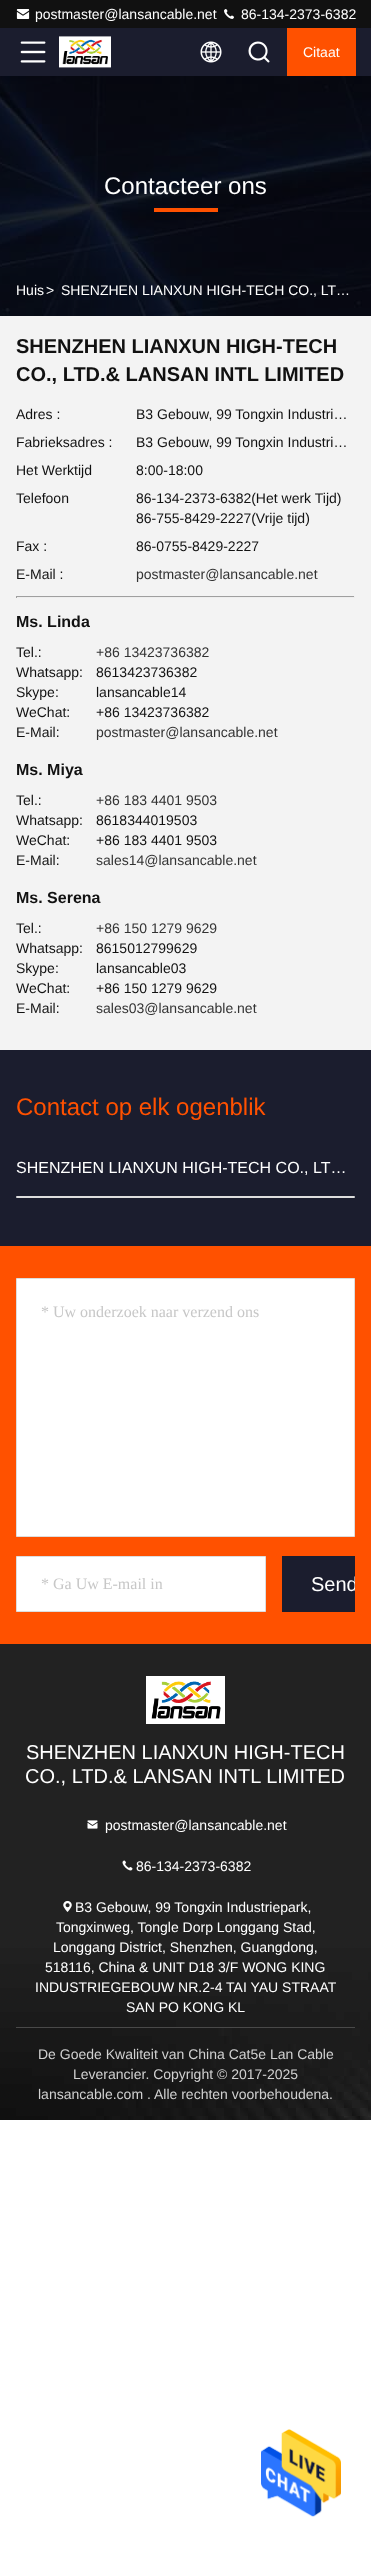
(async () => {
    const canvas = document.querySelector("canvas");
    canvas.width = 371;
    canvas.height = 2564;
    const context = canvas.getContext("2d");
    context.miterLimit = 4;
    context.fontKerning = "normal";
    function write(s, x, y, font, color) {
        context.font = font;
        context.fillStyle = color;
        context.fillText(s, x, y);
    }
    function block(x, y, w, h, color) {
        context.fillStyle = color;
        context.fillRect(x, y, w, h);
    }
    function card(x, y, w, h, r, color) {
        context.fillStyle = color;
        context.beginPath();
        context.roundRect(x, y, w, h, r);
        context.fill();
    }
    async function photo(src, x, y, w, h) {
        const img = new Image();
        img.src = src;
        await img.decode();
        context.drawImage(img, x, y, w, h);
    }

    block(0, 0, 371, 2564, "rgb(255, 255, 255)");
    block(0, 0, 371, 28, "rgb(17, 17, 17)");
    await photo("media/1.png", 16, 9, 14, 10);
    write("postmaster@lansancable.net", 35, 19, "14px Liberation Sans", "rgb(255, 255, 255)");
    await photo("media/2.png", 224, 9, 10, 10);
    write("86-134-2373-6382", 241, 19, "14px Liberation Sans", "rgb(255, 255, 255)");
    block(0, 28, 371, 48, "rgb(27, 29, 46)");
    await photo("media/3.png", 20, 41, 26, 22);
    await photo("media/4.png", 59, 36, 52, 32);
    await photo("media/5.png", 200, 41, 22, 22);
    await photo("media/6.png", 248, 41, 22, 22);
    block(287, 28, 69, 48, "rgb(255, 81, 0)");
    write("Citaat", 303, 57, "14px Liberation Sans", "rgb(255, 255, 255)");
    block(0, 316, 371, 734, "rgb(243, 243, 243)");
    await photo("media/7.png", 0, 76, 371, 240);
    write("Contacteer ons", 104, 194, "24px Liberation Sans", "rgb(255, 255, 255)");
    block(154, 208, 64, 4, "rgb(255, 81, 0)");
    write("Huis", 16, 295, "14px Liberation Sans", "rgb(255, 255, 255)");
    write(">", 46, 295, "14px Liberation Sans", "rgb(255, 255, 255)");
    write("SHENZHEN LIANXUN HIGH-TECH CO., LT…", 61, 295, "14px Liberation Sans", "rgb(255, 255, 255)");
    write("SHENZHEN LIANXUN HIGH-TECH", 16, 353, "bold 20px Liberation Sans", "rgb(17, 17, 17)");
    write("CO., LTD.& LANSAN INTL LIMITED", 16, 381, "bold 20px Liberation Sans", "rgb(17, 17, 17)");
    write("Adres :", 16, 419, "14px Liberation Sans", "rgb(17, 17, 17)");
    write("B3 Gebouw, 99 Tongxin Industri…", 136, 419, "14px Liberation Sans", "rgb(17, 17, 17)");
    write("Fabrieksadres :", 16, 447, "14px Liberation Sans", "rgb(17, 17, 17)");
    write("B3 Gebouw, 99 Tongxin Industri…", 136, 447, "14px Liberation Sans", "rgb(17, 17, 17)");
    write("Het Werktijd", 16, 475, "14px Liberation Sans", "rgb(17, 17, 17)");
    write("8:00-18:00", 136, 475, "14px Liberation Sans", "rgb(17, 17, 17)");
    write("Telefoon", 16, 503, "14px Liberation Sans", "rgb(17, 17, 17)");
    write("86-134-2373-6382(Het werk Tijd)", 136, 503, "14px Liberation Sans", "rgb(17, 17, 17)");
    write("86-755-8429-2227(Vrije tijd)", 136, 523, "14px Liberation Sans", "rgb(17, 17, 17)");
    write("Fax :", 16, 551, "14px Liberation Sans", "rgb(17, 17, 17)");
    write("86-0755-8429-2227", 136, 551, "14px Liberation Sans", "rgb(17, 17, 17)");
    write("E-Mail :", 16, 579, "14px Liberation Sans", "rgb(17, 17, 17)");
    write("postmaster@lansancable.net", 136, 579, "14px Liberation Sans", "rgb(51, 51, 51)");
    block(16, 596, 339, 1, "rgb(159, 159, 159)");
    block(354, 596, 1, 2, "rgb(238, 238, 238)");
    block(16, 597, 339, 1, "rgb(238, 238, 238)");
    block(16, 596, 1, 2, "rgb(159, 159, 159)");
    write("Ms. Linda", 16, 627, "bold 16px Liberation Sans", "rgb(17, 17, 17)");
    write("Tel.:", 16, 657, "14px Liberation Sans", "rgb(17, 17, 17)");
    write("+86 13423736382", 96, 657, "14px Liberation Sans", "rgb(51, 51, 51)");
    write("Whatsapp:", 16, 677, "14px Liberation Sans", "rgb(17, 17, 17)");
    write("8613423736382", 96, 677, "14px Liberation Sans", "rgb(17, 17, 17)");
    write("Skype:", 16, 697, "14px Liberation Sans", "rgb(17, 17, 17)");
    write("lansancable14", 96, 697, "14px Liberation Sans", "rgb(17, 17, 17)");
    write("WeChat:", 16, 717, "14px Liberation Sans", "rgb(17, 17, 17)");
    write("+86 13423736382", 96, 717, "14px Liberation Sans", "rgb(17, 17, 17)");
    write("E-Mail:", 16, 737, "14px Liberation Sans", "rgb(17, 17, 17)");
    write("postmaster@lansancable.net", 96, 737, "14px Liberation Sans", "rgb(51, 51, 51)");
    write("Ms. Miya", 16, 775, "bold 16px Liberation Sans", "rgb(17, 17, 17)");
    write("Tel.:", 16, 805, "14px Liberation Sans", "rgb(17, 17, 17)");
    write("+86 183 4401 9503", 96, 805, "14px Liberation Sans", "rgb(51, 51, 51)");
    write("Whatsapp:", 16, 825, "14px Liberation Sans", "rgb(17, 17, 17)");
    write("8618344019503", 96, 825, "14px Liberation Sans", "rgb(17, 17, 17)");
    write("WeChat:", 16, 845, "14px Liberation Sans", "rgb(17, 17, 17)");
    write("+86 183 4401 9503", 96, 845, "14px Liberation Sans", "rgb(17, 17, 17)");
    write("E-Mail:", 16, 865, "14px Liberation Sans", "rgb(17, 17, 17)");
    write("sales14@lansancable.net", 96, 865, "14px Liberation Sans", "rgb(51, 51, 51)");
    write("Ms. Serena", 16, 903, "bold 16px Liberation Sans", "rgb(17, 17, 17)");
    write("Tel.:", 16, 933, "14px Liberation Sans", "rgb(17, 17, 17)");
    write("+86 150 1279 9629", 96, 933, "14px Liberation Sans", "rgb(51, 51, 51)");
    write("Whatsapp:", 16, 953, "14px Liberation Sans", "rgb(17, 17, 17)");
    write("8615012799629", 96, 953, "14px Liberation Sans", "rgb(17, 17, 17)");
    write("Skype:", 16, 973, "14px Liberation Sans", "rgb(17, 17, 17)");
    write("lansancable03", 96, 973, "14px Liberation Sans", "rgb(17, 17, 17)");
    write("WeChat:", 16, 993, "14px Liberation Sans", "rgb(17, 17, 17)");
    write("+86 150 1279 9629", 96, 993, "14px Liberation Sans", "rgb(17, 17, 17)");
    write("E-Mail:", 16, 1013, "14px Liberation Sans", "rgb(17, 17, 17)");
    write("sales03@lansancable.net", 96, 1013, "14px Liberation Sans", "rgb(51, 51, 51)");
    block(0, 1050, 371, 196, "rgb(27, 29, 46)");
    write("Contact op elk ogenblik", 16, 1115, "24px Liberation Sans", "rgb(255, 81, 0)");
    write("SHENZHEN LIANXUN HIGH-TECH CO., LT…", 16, 1173, "16px Liberation Sans", "rgb(255, 255, 255)");
    card(16, 1196, 339, 2, 1, "rgb(221, 221, 221)");
    block(0, 1246, 371, 398, "rgb(255, 81, 0)");
    context.fillStyle = "rgb(255, 255, 255)";
    context.beginPath();
    context.rect(16.5, 1278.5, 338, 258);
    context.fill();
    context.strokeStyle = "rgb(221, 221, 221)";
    context.stroke();
    write("* Uw onderzoek naar verzend ons", 41, 1317, "16px Liberation Serif", "rgb(199, 199, 199)");
    context.fillStyle = "rgb(255, 255, 255)";
    context.beginPath();
    context.rect(16.5, 1556.5, 249, 55);
    context.fill();
    context.stroke();
    write("* Ga Uw E-mail in", 41, 1589, "16px Liberation Serif", "rgb(199, 199, 199)");
    block(282, 1556, 73, 56, "rgb(27, 29, 46)");
    context.save();
    context.beginPath();
    context.rect(16, 1556, 339, 56);
    context.clip();
    write("Send", 311, 1591, "20px Liberation Sans", "rgb(255, 255, 255)");
    context.restore();
    await photo("media/8.png", 0, 1644, 371, 476);
    await photo("media/9.png", 146, 1676, 79, 48);
    write("SHENZHEN LIANXUN HIGH-TECH", 26, 1759, "20px Liberation Sans", "rgb(255, 255, 255)");
    write("CO., LTD.& LANSAN INTL LIMITED", 25, 1783, "20px Liberation Sans", "rgb(255, 255, 255)");
    block(16, 2027, 339, 1, "rgb(73, 73, 73)");
    await photo("media/10.png", 87, 1820, 11, 9);
    write("postmaster@lansancable.net", 105, 1830, "14px Liberation Sans", "rgb(255, 255, 255)");
    await photo("media/11.png", 122, 1860, 11, 11);
    write("86-134-2373-6382", 136, 1871, "14px Liberation Sans", "rgb(255, 255, 255)");
    await photo("media/12.png", 63, 1900, 9, 12);
    write("B3 Gebouw, 99 Tongxin Industriepark,", 75, 1912, "14px Liberation Sans", "rgb(255, 255, 255)");
    write("Tongxinweg, Tongle Dorp Longgang Stad,", 56, 1932, "14px Liberation Sans", "rgb(255, 255, 255)");
    write("Longgang District, Shenzhen, Guangdong,", 53, 1952, "14px Liberation Sans", "rgb(255, 255, 255)");
    write("518116, China & UNIT D18 3/F WONG KING", 45, 1972, "14px Liberation Sans", "rgb(255, 255, 255)");
    write("INDUSTRIEGEBOUW NR.2-4 TAI YAU STRAAT", 35, 1992, "14px Liberation Sans", "rgb(255, 255, 255)");
    write("SAN PO KONG KL", 126, 2012, "14px Liberation Sans", "rgb(255, 255, 255)");
    write("De Goede Kwaliteit van China Cat5e Lan Cable", 38, 2059, "14px Liberation Sans", "rgb(209, 209, 209)");
    write("Leverancier. Copyright © 2017-2025", 73, 2079, "14px Liberation Sans", "rgb(209, 209, 209)");
    write("lansancable.com . Alle rechten voorbehoudena.", 38, 2099, "14px Liberation Sans", "rgb(209, 209, 209)");
    await photo("media/13.png", 261, 2429, 80, 88);
})();
